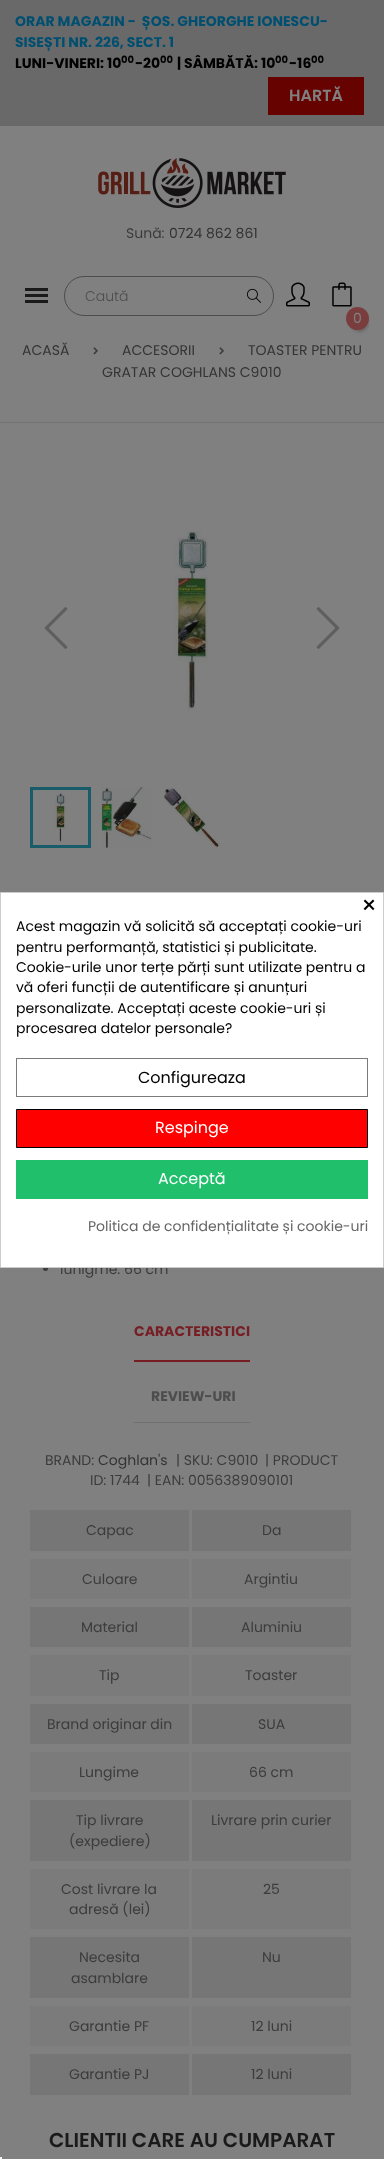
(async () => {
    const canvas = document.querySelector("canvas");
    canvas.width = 384;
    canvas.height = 2159;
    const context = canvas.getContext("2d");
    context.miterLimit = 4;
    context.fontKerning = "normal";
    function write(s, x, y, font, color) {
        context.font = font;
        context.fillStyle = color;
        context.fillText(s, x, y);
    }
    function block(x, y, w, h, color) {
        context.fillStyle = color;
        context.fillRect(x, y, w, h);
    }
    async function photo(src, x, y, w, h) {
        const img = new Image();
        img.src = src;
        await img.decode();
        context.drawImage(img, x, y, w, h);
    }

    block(0, 0, 384, 2159, "rgb(128, 128, 128)");
    block(0, 0, 384, 126, "rgb(105, 105, 105)");
    write("ORAR MAGAZIN -  ȘOS. GHEORGHE IONESCU-", 15, 26, "bold 14px Poppins", "rgb(0, 79, 112)");
    write("SISEȘTI NR. 226, SECT. 1", 15, 47, "bold 14px Poppins", "rgb(0, 79, 112)");
    write("LUNI-VINERI: 10", 15, 68, "bold 14px Poppins", "rgb(0, 0, 0)");
    write("00", 121, 63, "bold 10px Poppins", "rgb(0, 0, 0)");
    write("-20", 135, 68, "bold 14px Poppins", "rgb(0, 0, 0)");
    write("00", 160, 63, "bold 10px Poppins", "rgb(0, 0, 0)");
    write("| SÂMBĂTĂ: 10", 177, 68, "bold 14px Poppins", "rgb(0, 0, 0)");
    write("00", 275, 63, "bold 10px Poppins", "rgb(0, 0, 0)");
    write("-16", 289, 68, "bold 14px Poppins", "rgb(0, 0, 0)");
    write("00", 311, 63, "bold 10px Poppins", "rgb(0, 0, 0)");
    block(268, 77, 96, 38, "rgb(102, 3, 0)");
    write("HARTĂ", 289, 101, "600 16px Poppins", "rgb(128, 128, 128)");
    await photo("media/1.png", 98, 158, 188, 50);
    write("Sună:", 126, 238, "14px Poppins", "rgb(60, 60, 60)");
    write("0724 862 861", 169, 238, "14px Poppins", "rgb(51, 51, 51)");
    block(25, 288, 23, 3, "rgb(26, 26, 26)");
    block(25, 294, 23, 3, "rgb(26, 26, 26)");
    block(25, 300, 23, 3, "rgb(26, 26, 26)");
    context.beginPath();
    context.roundRect(64.5, 276.5, 209, 39, 19.5);
    context.strokeStyle = "rgb(77, 77, 77)";
    context.stroke();
    write("Caută", 85, 301, "300 14px Poppins", "rgb(77, 77, 77)");
    await photo("media/2.png", 247, 288, 14, 15);
    await photo("media/3.png", 286, 282, 24, 25);
    await photo("media/4.png", 332, 282, 20, 25);
    context.fillStyle = "rgb(102, 102, 102)";
    context.filter = "blur(1.5px)";
    context.beginPath();
    context.roundRect(351, 315, 17, 17, 8.5);
    context.fill();
    context.filter = "none";
    context.fillStyle = "rgb(122, 61, 61)";
    context.beginPath();
    context.arc(357.5, 318.5, 11.5, 0, Math.PI * 2);
    context.fill();
    write("0", 353, 323, "14px Poppins", "rgb(128, 128, 128)");
    block(0, 422, 384, 1, "rgb(115, 115, 115)");
    write("ACASĂ", 22, 355, "14px Poppins", "rgb(51, 51, 51)");
    await photo("media/5.png", 93, 347, 5, 8);
    write("ACCESORII", 122, 355, "14px Poppins", "rgb(51, 51, 51)");
    await photo("media/5.png", 219, 347, 5, 8);
    write("TOASTER PENTRU", 248, 355, "14px Poppins", "rgb(51, 51, 51)");
    write("GRATAR COGHLANS C9010", 102, 377, "14px Poppins", "rgb(51, 51, 51)");
    await photo("media/6.png", 174, 531, 34, 180);
    await photo("media/7.png", 44, 607, 24, 42);
    await photo("media/8.png", 316, 607, 24, 42);
    context.strokeStyle = "rgb(24, 91, 105)";
    context.lineWidth = 3;
    context.strokeRect(31.5, 788.5, 58, 58);
    await photo("media/9.png", 55, 792, 13, 51);
    await photo("media/10.png", 101, 787, 51, 61);
    await photo("media/11.png", 164, 787, 56, 61);
    context.fillStyle = "rgb(60, 60, 60)";
    context.beginPath();
    context.arc(45.5, 1268.5, 2.5, 0, Math.PI * 2);
    context.fill();
    write("lunigme: 66 cm", 60, 1274, "14px Poppins", "rgb(60, 60, 60)");
    block(134, 1422, 116, 1, "rgb(111, 111, 111)");
    block(134, 1360, 116, 2, "rgb(118, 30, 36)");
    write("CARACTERISTICI", 134, 1336, "bold 14px Poppins", "rgb(118, 30, 36)");
    write("REVIEW-URI", 151, 1401, "bold 14px Poppins", "rgb(77, 77, 77)");
    write("BRAND:", 45, 1465, "14px Poppins", "rgb(60, 60, 60)");
    write("Coghlan's", 98, 1465, "14px Poppins", "rgb(51, 51, 51)");
    write("| SKU: C9010", 176, 1465, "14px Poppins", "rgb(60, 60, 60)");
    write("| PRODUCT", 265, 1465, "14px Poppins", "rgb(60, 60, 60)");
    write("ID: 1744", 90, 1485, "14px Poppins", "rgb(60, 60, 60)");
    write("| EAN: 0056389090101", 147, 1485, "14px Poppins", "rgb(60, 60, 60)");
    block(30, 1510, 159, 41, "rgb(118, 118, 118)");
    write("Capac", 86, 1535, "14px Poppins", "rgb(60, 60, 60)");
    block(192, 1510, 159, 41, "rgb(118, 118, 118)");
    write("Da", 262, 1535, "14px Poppins", "rgb(60, 60, 60)");
    block(30, 1559, 159, 40, "rgb(123, 123, 123)");
    write("Culoare", 82, 1584, "14px Poppins", "rgb(60, 60, 60)");
    block(192, 1559, 159, 40, "rgb(123, 123, 123)");
    write("Argintiu", 244, 1584, "14px Poppins", "rgb(60, 60, 60)");
    block(30, 1607, 159, 40, "rgb(118, 118, 118)");
    write("Material", 81, 1632, "14px Poppins", "rgb(60, 60, 60)");
    block(192, 1607, 159, 40, "rgb(118, 118, 118)");
    write("Aluminiu", 241, 1632, "14px Poppins", "rgb(60, 60, 60)");
    block(30, 1655, 159, 41, "rgb(123, 123, 123)");
    write("Tip", 99, 1680, "14px Poppins", "rgb(60, 60, 60)");
    block(192, 1655, 159, 41, "rgb(123, 123, 123)");
    write("Toaster", 245, 1680, "14px Poppins", "rgb(60, 60, 60)");
    block(30, 1704, 159, 40, "rgb(118, 118, 118)");
    write("Brand originar din", 47, 1729, "14px Poppins", "rgb(60, 60, 60)");
    block(192, 1704, 159, 40, "rgb(118, 118, 118)");
    write("SUA", 258, 1729, "14px Poppins", "rgb(60, 60, 60)");
    block(30, 1752, 159, 40, "rgb(123, 123, 123)");
    write("Lungime", 79, 1777, "14px Poppins", "rgb(60, 60, 60)");
    block(192, 1752, 159, 40, "rgb(123, 123, 123)");
    write("66 cm", 249, 1777, "14px Poppins", "rgb(60, 60, 60)");
    block(30, 1800, 159, 61, "rgb(118, 118, 118)");
    write("Tip livrare", 76, 1825, "14px Poppins", "rgb(60, 60, 60)");
    write("(expediere)", 69, 1846, "14px Poppins", "rgb(60, 60, 60)");
    block(192, 1800, 159, 61, "rgb(118, 118, 118)");
    write("Livrare prin curier", 211, 1825, "14px Poppins", "rgb(60, 60, 60)");
    block(30, 1869, 159, 60, "rgb(123, 123, 123)");
    write("Cost livrare la", 61, 1894, "14px Poppins", "rgb(60, 60, 60)");
    write("adresă (lei)", 69, 1914, "14px Poppins", "rgb(60, 60, 60)");
    block(192, 1869, 159, 60, "rgb(123, 123, 123)");
    write("25", 263, 1894, "14px Poppins", "rgb(60, 60, 60)");
    block(30, 1937, 159, 61, "rgb(118, 118, 118)");
    write("Necesita", 79, 1962, "14px Poppins", "rgb(60, 60, 60)");
    write("asamblare", 71, 1983, "14px Poppins", "rgb(60, 60, 60)");
    block(192, 1937, 159, 61, "rgb(118, 118, 118)");
    write("Nu", 262, 1962, "14px Poppins", "rgb(60, 60, 60)");
    block(30, 2006, 159, 40, "rgb(123, 123, 123)");
    write("Garantie PF", 69, 2031, "14px Poppins", "rgb(60, 60, 60)");
    block(192, 2006, 159, 40, "rgb(123, 123, 123)");
    write("12 luni", 251, 2031, "14px Poppins", "rgb(60, 60, 60)");
    block(30, 2054, 159, 41, "rgb(118, 118, 118)");
    write("Garantie PJ", 69, 2079, "14px Poppins", "rgb(60, 60, 60)");
    block(192, 2054, 159, 41, "rgb(118, 118, 118)");
    write("12 luni", 251, 2079, "14px Poppins", "rgb(60, 60, 60)");
    write("CLIENTII CARE AU CUMPARAT", 49, 2147, "600 20px Poppins", "rgb(26, 26, 26)");
    context.fillStyle = "rgb(255, 255, 255)";
    context.beginPath();
    context.rect(0.5, 892.5, 383, 375);
    context.fill();
    context.strokeStyle = "rgb(204, 204, 204)";
    context.lineWidth = 1;
    context.stroke();
    write("×", 361, 914, "25px Poppins", "rgb(0, 0, 0)");
    write("Acest magazin vă solicită să acceptați cookie-uri", 16, 931, "14px Poppins", "rgb(0, 0, 0)");
    write("pentru performanță, statistici și publicitate.", 16, 952, "14px Poppins", "rgb(0, 0, 0)");
    write("Cookie-urile unor terțe părți sunt utilizate pentru a", 16, 972, "14px Poppins", "rgb(0, 0, 0)");
    write("vă oferi funcții de autentificare și anunțuri", 16, 992, "14px Poppins", "rgb(0, 0, 0)");
    write("personalizate. Acceptați aceste cookie-uri și", 16, 1013, "14px Poppins", "rgb(0, 0, 0)");
    write("procesarea datelor personale?", 16, 1033, "14px Poppins", "rgb(0, 0, 0)");
    context.strokeStyle = "rgb(122, 122, 122)";
    context.strokeRect(16.5, 1058.5, 351, 38);
    write("Configureaza", 138, 1083, "16px Poppins", "rgb(0, 0, 0)");
    context.fillStyle = "rgb(255, 0, 0)";
    context.beginPath();
    context.rect(16.5, 1109.5, 351, 38);
    context.fill();
    context.strokeStyle = "rgb(0, 0, 0)";
    context.stroke();
    write("Respinge", 155, 1133, "16px Poppins", "rgb(255, 255, 255)");
    block(16, 1160, 352, 39, "rgb(32, 191, 107)");
    write("Acceptă", 158, 1184, "16px Poppins", "rgb(255, 255, 255)");
    write("Politica de confidențialitate și cookie-uri", 88, 1231, "14px Poppins", "rgb(102, 102, 102)");
    block(0, 2157, 2, 2, "rgb(245, 245, 245)");
})();
